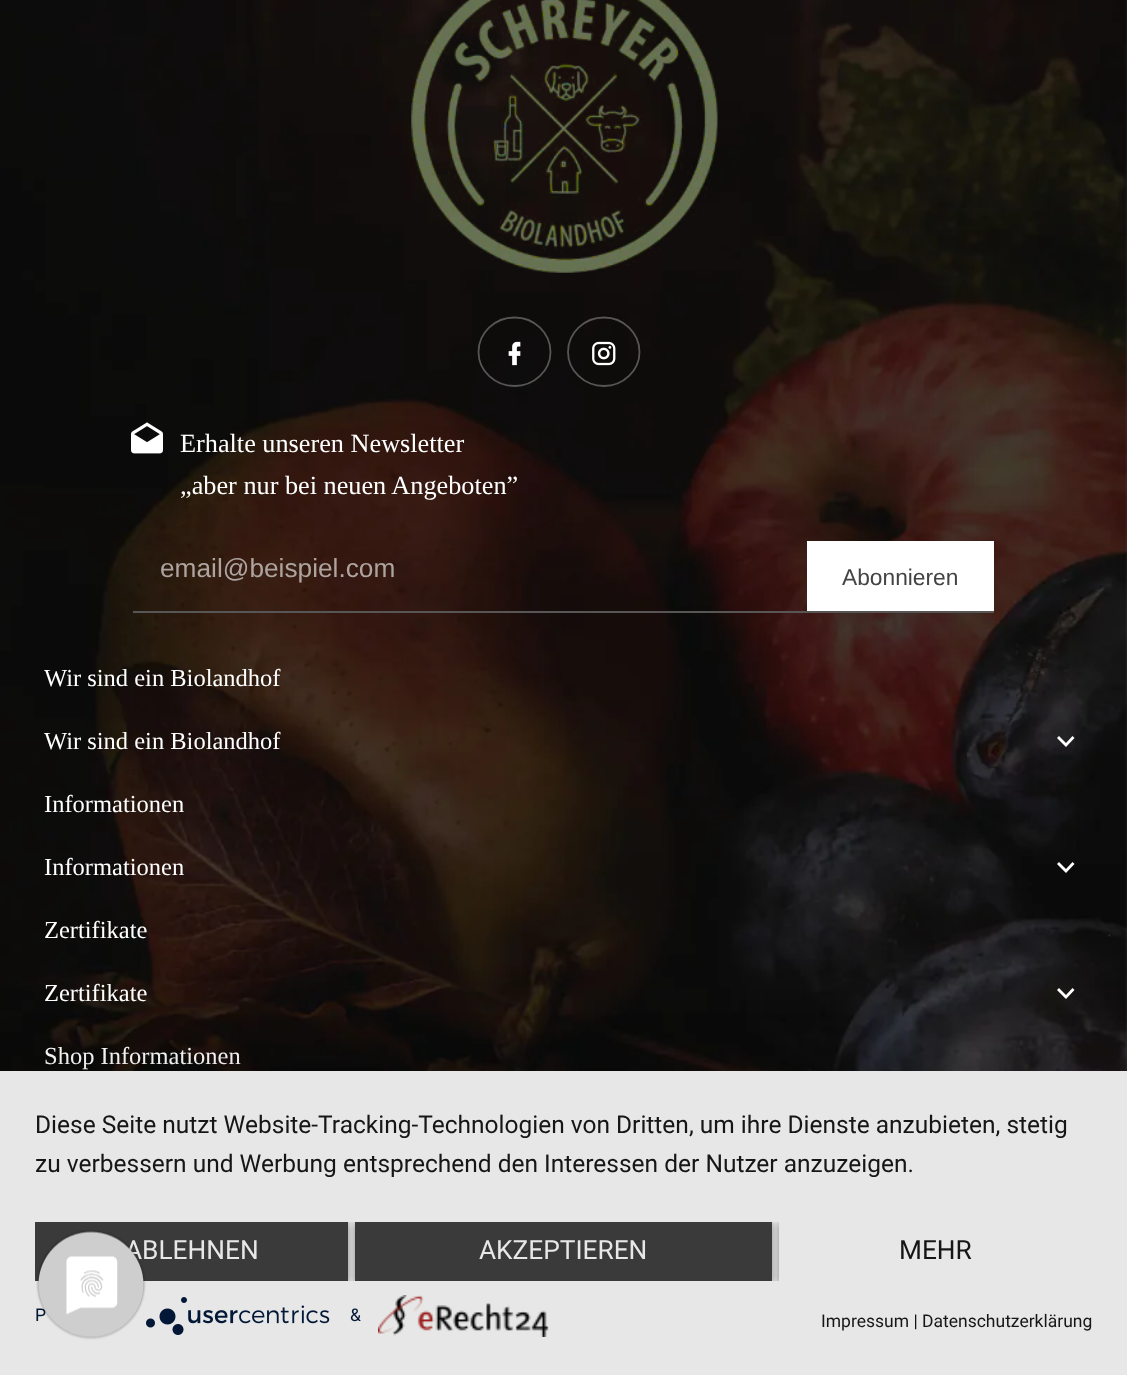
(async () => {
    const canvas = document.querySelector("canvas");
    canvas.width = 1127;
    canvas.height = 1375;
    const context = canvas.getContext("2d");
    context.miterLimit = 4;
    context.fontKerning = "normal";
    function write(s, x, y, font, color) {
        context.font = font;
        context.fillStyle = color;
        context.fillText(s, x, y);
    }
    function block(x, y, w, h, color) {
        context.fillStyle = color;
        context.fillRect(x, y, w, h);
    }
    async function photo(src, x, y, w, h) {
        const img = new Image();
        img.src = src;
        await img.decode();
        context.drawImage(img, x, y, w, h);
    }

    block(0, 0, 1127, 1375, "rgb(255, 255, 255)");
    await photo("media/1.png", 1125, 0, 2, 1071);
    await photo("media/2.png", 0, 0, 1127, 1071);
    await photo("media/3.png", 411, 0, 307, 273);
    context.beginPath();
    context.moveTo(514.5, 317.5);
    context.bezierCurveTo(534.5, 317.5, 550.5, 333, 550.5, 352);
    context.bezierCurveTo(550.5, 370.5, 534.5, 386, 514.5, 386);
    context.bezierCurveTo(494.5, 386, 478.5, 370.5, 478.5, 352);
    context.bezierCurveTo(478.5, 333, 494.5, 317.5, 514.5, 317.5);
    context.closePath();
    context.strokeStyle = "rgb(87, 86, 84)";
    context.lineWidth = 1.8;
    context.stroke();
    await photo("media/4.png", 508, 341, 13, 25);
    context.beginPath();
    context.moveTo(604, 317.5);
    context.bezierCurveTo(623.5, 317.5, 639.5, 333, 639.5, 352);
    context.bezierCurveTo(639.5, 370.5, 623.5, 386, 604, 386);
    context.bezierCurveTo(584, 386, 568, 370.5, 568, 352);
    context.bezierCurveTo(568, 333, 584, 317.5, 604, 317.5);
    context.closePath();
    context.stroke();
    await photo("media/5.png", 592, 341, 24, 25);
    await photo("media/6.png", 131, 422, 32, 32);
    write("Erhalte unseren Newsletter", 180, 452, "26.25px Liberation Serif", "rgb(255, 255, 255)");
    write("„aber nur bei neuen Angeboten”", 180, 494, "26.25px Liberation Serif", "rgb(255, 255, 255)");
    block(133, 611, 861, 2, "rgb(87, 86, 84)");
    write("email@beispiel.com", 160, 577, "26.25px Liberation Sans", "rgb(174, 164, 159)");
    block(807, 541, 187, 70, "rgb(255, 255, 255)");
    write("Abonnieren", 842, 585, "22.75px Liberation Sans", "rgb(68, 68, 68)");
    write("Wir sind ein Biolandhof", 44, 686, "24.5px Liberation Serif", "rgb(255, 255, 255)");
    write("Wir sind ein Biolandhof", 44, 749, "24.5px Liberation Serif", "rgb(255, 255, 255)");
    context.beginPath();
    context.moveTo(1059, 736);
    context.lineTo(1066, 743);
    context.lineTo(1072.5, 736);
    context.lineTo(1074.5, 738);
    context.lineTo(1066, 747);
    context.lineTo(1057, 738);
    context.closePath();
    context.fill();
    write("Informationen", 44, 812, "24.5px Liberation Serif", "rgb(255, 255, 255)");
    write("Informationen", 44, 875, "24.5px Liberation Serif", "rgb(255, 255, 255)");
    context.beginPath();
    context.moveTo(1059, 862);
    context.lineTo(1066, 869);
    context.lineTo(1072.5, 862);
    context.lineTo(1074.5, 864);
    context.lineTo(1066, 873);
    context.lineTo(1057, 864);
    context.closePath();
    context.fill();
    write("Zertifikate", 44, 938, "24.5px Liberation Serif", "rgb(255, 255, 255)");
    write("Zertifikate", 44, 1001, "24.5px Liberation Serif", "rgb(255, 255, 255)");
    context.beginPath();
    context.moveTo(1059, 988);
    context.lineTo(1066, 995);
    context.lineTo(1072.5, 988);
    context.lineTo(1074.5, 990);
    context.lineTo(1066, 999);
    context.lineTo(1057, 990);
    context.closePath();
    context.fill();
    write("Shop Informationen", 44, 1064, "24.5px Liberation Serif", "rgb(255, 255, 255)");
    context.fillStyle = "rgba(0, 0, 0, 0.3)";
    context.filter = "blur(31.5px)";
    context.beginPath();
    context.rect(0, 1082, 1127, 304);
    context.fill();
    context.filter = "none";
    block(0, 1071, 1127, 304, "rgb(231, 231, 231)");
    write("Diese Seite nutzt Website-Tracking-Technologien von Dritten, um ihre Dienste anzubieten, stetig", 35, 1133, "24.5px Roboto", "rgb(22, 22, 22)");
    write("zu verbessern und Werbung entsprechend den Interessen der Nutzer anzuzeigen.", 35, 1172, "24.5px Roboto", "rgb(22, 22, 22)");
    context.save();
    context.beginPath();
    context.rect(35, 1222, 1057, 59);
    context.clip();
    context.fillStyle = "rgba(0, 0, 0, 0.4)";
    context.filter = "blur(3.5px)";
    context.beginPath();
    context.rect(35, 1223, 313, 60);
    context.fill();
    context.filter = "none";
    context.restore();
    block(35, 1222, 313, 59, "rgb(58, 58, 58)");
    write("ABLEHNEN", 125, 1259, "26.25px Roboto", "rgb(231, 231, 231)");
    context.save();
    context.beginPath();
    context.rect(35, 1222, 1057, 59);
    context.clip();
    context.fillStyle = "rgba(0, 0, 0, 0.4)";
    context.filter = "blur(3.5px)";
    context.beginPath();
    context.rect(355, 1223, 417, 60);
    context.fill();
    context.filter = "none";
    context.restore();
    block(355, 1222, 417, 59, "rgb(58, 58, 58)");
    write("AKZEPTIEREN", 479, 1259, "26.25px Roboto", "rgb(231, 231, 231)");
    context.save();
    context.beginPath();
    context.rect(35, 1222, 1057, 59);
    context.clip();
    context.beginPath();
    context.rect(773, 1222, 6, 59);
    context.clip();
    context.fillStyle = "rgba(0, 0, 0, 0.4)";
    context.filter = "blur(3.5px)";
    context.beginPath();
    context.rect(779, 1223, 313, 60);
    context.fill();
    context.filter = "none";
    context.restore();
    write("MEHR", 899, 1259, "26.25px Roboto", "rgb(22, 22, 22)");
    write("P", 35, 1321, "17.5px Roboto", "rgb(2, 24, 54)");
    await photo("media/7.png", 146, 1297, 184, 38);
    write("&", 350, 1321, "17.5px Roboto", "rgb(2, 24, 54)");
    await photo("media/8.png", 378, 1295, 171, 42);
    write("Impressum | Datenschutzerklärung", 821, 1327, "17.5px Roboto", "rgb(22, 22, 22)");
    await photo("media/9.png", 36, 1230, 110, 110);
})();
